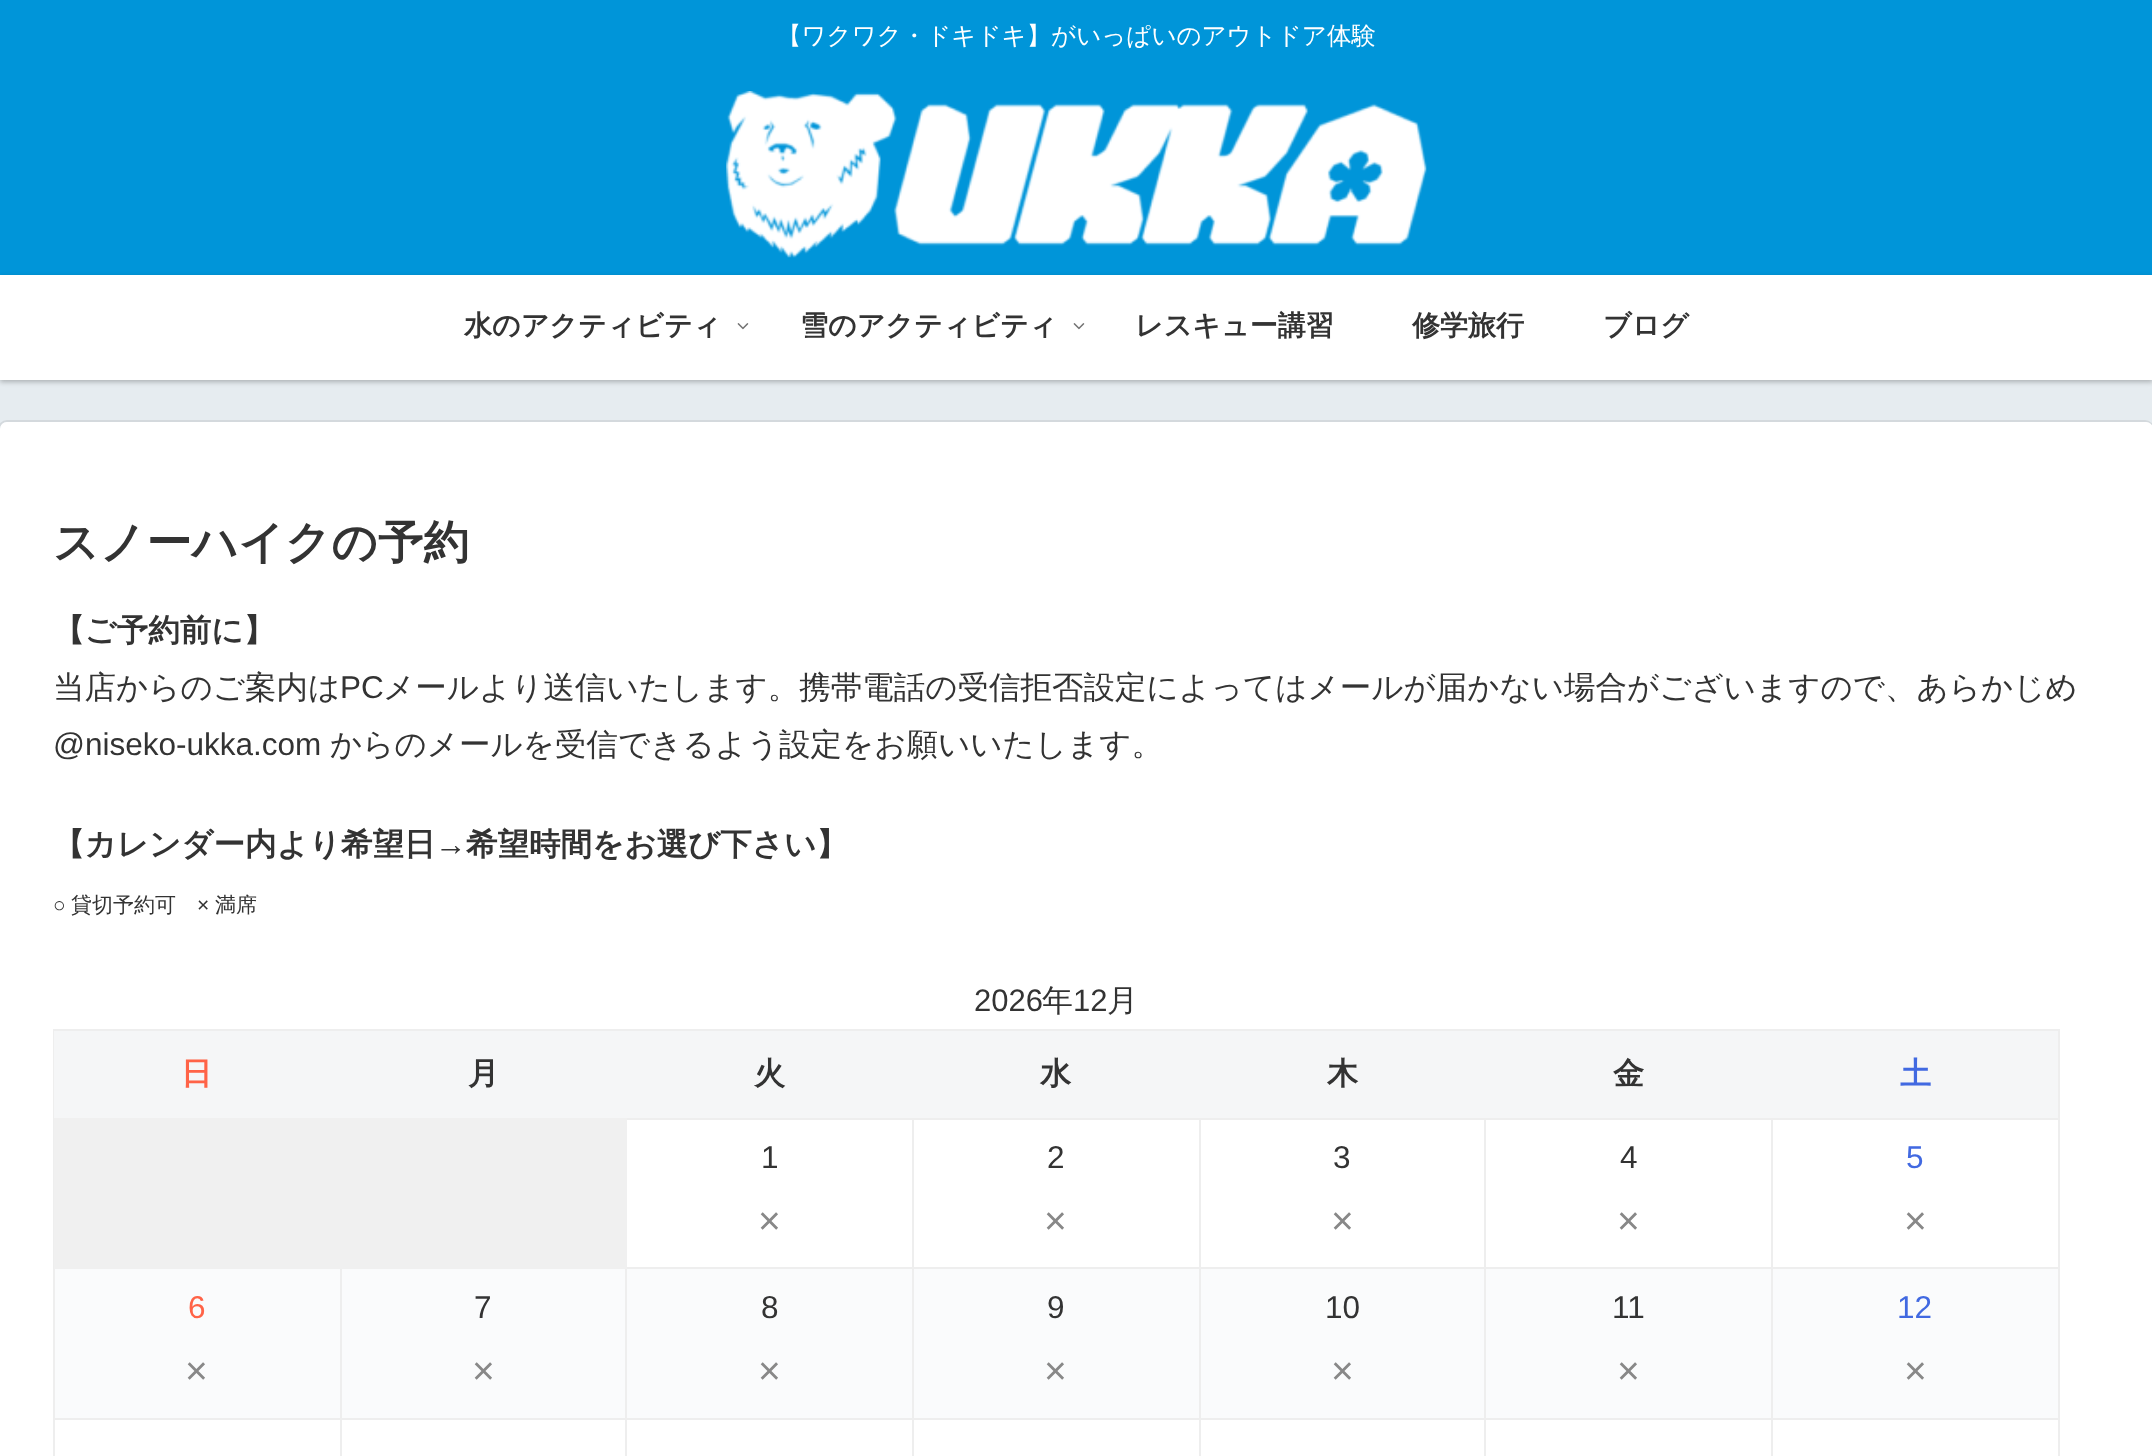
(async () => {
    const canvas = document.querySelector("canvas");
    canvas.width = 2152;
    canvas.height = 1456;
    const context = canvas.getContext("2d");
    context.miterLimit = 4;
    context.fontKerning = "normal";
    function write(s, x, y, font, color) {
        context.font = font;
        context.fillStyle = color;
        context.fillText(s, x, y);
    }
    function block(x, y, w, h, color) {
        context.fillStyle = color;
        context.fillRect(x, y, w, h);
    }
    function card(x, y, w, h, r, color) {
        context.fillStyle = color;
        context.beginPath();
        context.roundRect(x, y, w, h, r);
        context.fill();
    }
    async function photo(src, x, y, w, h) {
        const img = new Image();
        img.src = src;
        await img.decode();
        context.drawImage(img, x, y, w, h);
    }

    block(0, 0, 2152, 1456, "rgb(230, 236, 240)");
    block(0, 0, 2152, 275, "rgb(0, 149, 217)");
    write("【ワクワク・ドキドキ】がいっぱいのアウトドア体験", 777, 44, "500 24.5px WenQuanYi Zen Hei", "rgb(255, 255, 255)");
    await photo("media/1.png", 726, 91, 701, 167);
    context.fillStyle = "rgba(0, 0, 0, 0.25)";
    context.filter = "blur(2.5px)";
    context.beginPath();
    context.rect(0, 277, 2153, 105);
    context.fill();
    context.filter = "none";
    block(0, 275, 2152, 105, "rgb(255, 255, 255)");
    write("水のアクティビティ", 464, 335, "bold 28px WenQuanYi Zen Hei", "rgb(51, 51, 51)");
    await photo("media/2.png", 737, 323, 12, 7);
    write("雪のアクティビティ", 800, 335, "bold 28px WenQuanYi Zen Hei", "rgb(51, 51, 51)");
    await photo("media/2.png", 1073, 323, 12, 7);
    write("レスキュー講習", 1135, 335, "bold 28px WenQuanYi Zen Hei", "rgb(51, 51, 51)");
    write("修学旅行", 1412, 335, "bold 28px WenQuanYi Zen Hei", "rgb(51, 51, 51)");
    write("ブログ", 1603, 335, "bold 28px WenQuanYi Zen Hei", "rgb(51, 51, 51)");
    context.beginPath();
    context.roundRect(-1, 421, 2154, 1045, 8);
    context.strokeStyle = "rgb(212, 217, 221)";
    context.lineWidth = 2;
    context.stroke();
    card(0, 422, 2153, 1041, 7, "rgb(255, 255, 255)");
    write("スノーハイクの予約", 53, 558, "bold 45.5px WenQuanYi Zen Hei", "rgb(51, 51, 51)");
    write("【ご予約前に】", 53, 641, "bold 31.5px WenQuanYi Zen Hei", "rgb(51, 51, 51)");
    write("当店からのご案内は", 53, 698, "500 31.5px WenQuanYi Zen Hei", "rgb(51, 51, 51)");
    write("PC", 340, 698, "31.5px Liberation Sans", "rgb(51, 51, 51)");
    write("メールより送信いたします。携帯電話の受信拒否設定によってはメールが届かない場合がございますので、あらかじめ", 383, 698, "500 31.5px WenQuanYi Zen Hei", "rgb(51, 51, 51)");
    write("@niseko-ukka.com", 53, 755, "31.5px Liberation Sans", "rgb(51, 51, 51)");
    write("からのメールを受信できるよう設定をお願いいたします。", 330, 755, "500 31.5px WenQuanYi Zen Hei", "rgb(51, 51, 51)");
    write("【カレンダー内より希望日", 53, 855, "bold 31.5px WenQuanYi Zen Hei", "rgb(51, 51, 51)");
    write("→", 435, 855, "bold 31.5px Liberation Sans", "rgb(51, 51, 51)");
    write("希望時間をお選び下さい】", 466, 855, "bold 31.5px WenQuanYi Zen Hei", "rgb(51, 51, 51)");
    write("○", 53, 912, "21px Liberation Sans", "rgb(51, 51, 51)");
    write("貸切予約可", 71, 912, "500 21px WenQuanYi Zen Hei", "rgb(51, 51, 51)");
    write("×", 197, 912, "21px Liberation Sans", "rgb(51, 51, 51)");
    write("満席", 215, 912, "500 21px WenQuanYi Zen Hei", "rgb(51, 51, 51)");
    write("2026", 974, 1011, "31px Liberation Sans", "rgb(51, 51, 51)");
    write("年", 1042, 1011, "500 31px WenQuanYi Zen Hei", "rgb(51, 51, 51)");
    write("12", 1073, 1011, "31px Liberation Sans", "rgb(51, 51, 51)");
    write("月", 1107, 1011, "500 31px WenQuanYi Zen Hei", "rgb(51, 51, 51)");
    block(53, 1029, 2007, 2, "rgb(238, 238, 238)");
    block(1771, 1418, 289, 2, "rgb(238, 238, 238)");
    block(1771, 1418, 2, 38, "rgb(238, 238, 238)");
    block(1484, 1418, 289, 2, "rgb(238, 238, 238)");
    block(1484, 1418, 2, 38, "rgb(238, 238, 238)");
    block(1199, 1418, 287, 2, "rgb(238, 238, 238)");
    block(1199, 1418, 2, 38, "rgb(238, 238, 238)");
    block(912, 1418, 289, 2, "rgb(238, 238, 238)");
    block(912, 1418, 2, 38, "rgb(238, 238, 238)");
    block(625, 1418, 289, 2, "rgb(238, 238, 238)");
    block(625, 1418, 2, 38, "rgb(238, 238, 238)");
    block(340, 1418, 287, 2, "rgb(238, 238, 238)");
    block(340, 1418, 2, 38, "rgb(238, 238, 238)");
    block(53, 1418, 288, 2, "rgb(238, 238, 238)");
    block(53, 1267, 2, 189, "rgb(238, 238, 238)");
    block(53, 1118, 1, 151, "rgb(238, 238, 238)");
    block(53, 1029, 2, 91, "rgb(238, 238, 238)");
    block(54, 1031, 2004, 87, "rgb(245, 246, 247)");
    write("日", 181, 1084, "bold 31px WenQuanYi Zen Hei", "rgb(255, 99, 71)");
    write("月", 468, 1084, "bold 31px WenQuanYi Zen Hei", "rgb(51, 51, 51)");
    write("火", 754, 1084, "bold 31px WenQuanYi Zen Hei", "rgb(51, 51, 51)");
    write("水", 1040, 1084, "bold 31px WenQuanYi Zen Hei", "rgb(51, 51, 51)");
    write("木", 1327, 1084, "bold 31px WenQuanYi Zen Hei", "rgb(51, 51, 51)");
    write("金", 1613, 1084, "bold 31px WenQuanYi Zen Hei", "rgb(51, 51, 51)");
    block(1771, 1118, 289, 2, "rgb(238, 238, 238)");
    block(1771, 1267, 289, 2, "rgb(238, 238, 238)");
    block(2058, 1418, 2, 38, "rgb(238, 238, 238)");
    block(2058, 1267, 2, 152, "rgb(238, 238, 238)");
    block(2058, 1118, 2, 151, "rgb(238, 238, 238)");
    block(2058, 1029, 2, 91, "rgb(238, 238, 238)");
    write("土", 1900, 1084, "bold 31px WenQuanYi Zen Hei", "rgb(65, 105, 225)");
    block(55, 1269, 2003, 149, "rgb(250, 251, 252)");
    block(1771, 1267, 2, 152, "rgb(238, 238, 238)");
    block(1484, 1267, 289, 2, "rgb(238, 238, 238)");
    block(1771, 1118, 2, 151, "rgb(238, 238, 238)");
    block(1484, 1118, 289, 2, "rgb(238, 238, 238)");
    block(1484, 1267, 2, 152, "rgb(238, 238, 238)");
    block(1199, 1267, 287, 2, "rgb(238, 238, 238)");
    block(1484, 1118, 2, 151, "rgb(238, 238, 238)");
    block(1199, 1118, 287, 2, "rgb(238, 238, 238)");
    block(1199, 1267, 2, 152, "rgb(238, 238, 238)");
    block(912, 1267, 289, 2, "rgb(238, 238, 238)");
    block(1199, 1118, 2, 151, "rgb(238, 238, 238)");
    block(912, 1118, 289, 2, "rgb(238, 238, 238)");
    block(912, 1267, 2, 152, "rgb(238, 238, 238)");
    block(625, 1267, 289, 2, "rgb(238, 238, 238)");
    block(912, 1118, 2, 151, "rgb(238, 238, 238)");
    block(625, 1118, 289, 2, "rgb(238, 238, 238)");
    block(340, 1267, 2, 152, "rgb(238, 238, 238)");
    block(625, 1267, 2, 152, "rgb(238, 238, 238)");
    block(54, 1118, 573, 151, "rgb(240, 240, 240)");
    write("1", 761, 1168, "31.5px Liberation Sans", "rgb(51, 51, 51)");
    write("×", 758, 1234, "39px Liberation Sans", "rgb(136, 136, 136)");
    write("2", 1047, 1168, "31.5px Liberation Sans", "rgb(51, 51, 51)");
    write("×", 1044, 1234, "39px Liberation Sans", "rgb(136, 136, 136)");
    write("3", 1333, 1168, "31.5px Liberation Sans", "rgb(51, 51, 51)");
    write("×", 1331, 1234, "39px Liberation Sans", "rgb(136, 136, 136)");
    write("4", 1620, 1168, "31.5px Liberation Sans", "rgb(51, 51, 51)");
    write("×", 1617, 1234, "39px Liberation Sans", "rgb(136, 136, 136)");
    write("5", 1906, 1168, "31.5px Liberation Sans", "rgb(65, 105, 225)");
    write("×", 1904, 1234, "39px Liberation Sans", "rgb(136, 136, 136)");
    write("6", 188, 1318, "31.5px Liberation Sans", "rgb(255, 99, 71)");
    write("×", 185, 1384, "39px Liberation Sans", "rgb(136, 136, 136)");
    write("7", 474, 1318, "31.5px Liberation Sans", "rgb(51, 51, 51)");
    write("×", 472, 1384, "39px Liberation Sans", "rgb(136, 136, 136)");
    write("8", 761, 1318, "31.5px Liberation Sans", "rgb(51, 51, 51)");
    write("×", 758, 1384, "39px Liberation Sans", "rgb(136, 136, 136)");
    write("9", 1047, 1318, "31.5px Liberation Sans", "rgb(51, 51, 51)");
    write("×", 1044, 1384, "39px Liberation Sans", "rgb(136, 136, 136)");
    write("10", 1325, 1318, "31.5px Liberation Sans", "rgb(51, 51, 51)");
    write("×", 1331, 1384, "39px Liberation Sans", "rgb(136, 136, 136)");
    write("11", 1612, 1318, "31.5px Liberation Sans", "rgb(51, 51, 51)");
    write("×", 1617, 1384, "39px Liberation Sans", "rgb(136, 136, 136)");
    write("12", 1897, 1318, "31.5px Liberation Sans", "rgb(65, 105, 225)");
    write("×", 1904, 1384, "39px Liberation Sans", "rgb(136, 136, 136)");
})();
